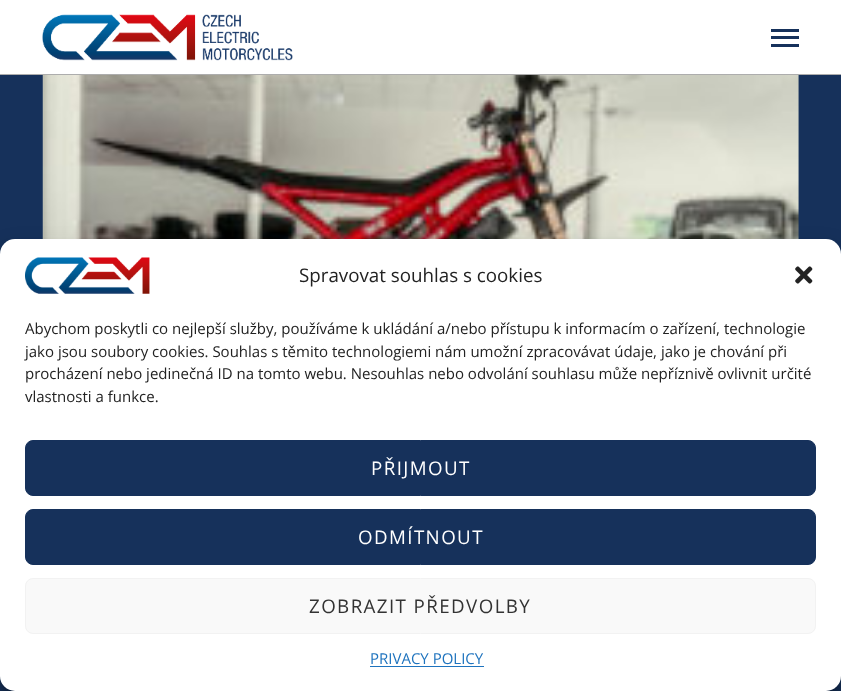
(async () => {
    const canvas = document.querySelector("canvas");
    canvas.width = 841;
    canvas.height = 691;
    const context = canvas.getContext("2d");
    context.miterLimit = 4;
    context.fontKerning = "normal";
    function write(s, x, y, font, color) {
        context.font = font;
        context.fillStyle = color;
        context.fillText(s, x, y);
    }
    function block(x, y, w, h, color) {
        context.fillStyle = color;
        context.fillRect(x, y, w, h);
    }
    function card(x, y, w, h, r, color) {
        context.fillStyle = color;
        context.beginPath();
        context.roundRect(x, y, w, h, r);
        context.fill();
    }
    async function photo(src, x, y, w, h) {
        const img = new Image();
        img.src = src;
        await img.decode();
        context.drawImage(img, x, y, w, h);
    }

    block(0, 0, 841, 691, "rgb(22, 49, 91)");
    block(0, 0, 841, 74, "rgb(255, 255, 255)");
    block(0, 74, 841, 1, "rgb(173, 173, 173)");
    await photo("media/1.png", 42, 14, 251, 47);
    block(771, 36, 28, 3, "rgb(22, 49, 91)");
    block(771, 29, 28, 3, "rgb(22, 49, 91)");
    block(771, 44, 28, 3, "rgb(22, 49, 91)");
    await photo("media/2.png", 42, 75, 757, 164);
    context.fillStyle = "rgba(0, 0, 0, 0.23)";
    context.filter = "blur(4px)";
    context.beginPath();
    context.roundRect(0, 246, 841, 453, 15);
    context.fill();
    context.filter = "none";
    context.fillStyle = "rgba(0, 0, 0, 0.19)";
    context.filter = "blur(12.5px)";
    context.beginPath();
    context.roundRect(0, 251, 841, 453, 15);
    context.fill();
    context.filter = "none";
    context.fillStyle = "rgb(128, 128, 128)";
    context.filter = "blur(3px)";
    context.beginPath();
    context.roundRect(754, 599, 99, 75, 2.5);
    context.fill();
    context.filter = "none";
    card(0, 239, 841, 452, 15, "rgb(255, 255, 255)");
    await photo("media/3.png", 25, 257, 125, 37);
    write("Spravovat souhlas s cookies", 299, 282, "18.75px Open Sans", "rgb(34, 34, 34)");
    await photo("media/4.png", 795, 266, 18, 18);
    write("Abychom poskytli co nejlepší služby, používáme k ukládání a/nebo přístupu k informacím o zařízení, technologie", 25, 334, "15px Open Sans", "rgb(34, 34, 34)");
    write("jako jsou soubory cookies. Souhlas s těmito technologiemi nám umožní zpracovávat údaje, jako je chování při", 25, 357, "15px Open Sans", "rgb(34, 34, 34)");
    write("procházení nebo jedinečná ID na tomto webu. Nesouhlas nebo odvolání souhlasu může nepříznivě ovlivnit určité", 25, 379, "15px Open Sans", "rgb(34, 34, 34)");
    write("vlastnosti a funkce.", 25, 402, "15px Open Sans", "rgb(34, 34, 34)");
    context.fillStyle = "rgb(22, 49, 91)";
    context.beginPath();
    context.roundRect(25.5, 440.5, 790, 55, 7.5);
    context.fill();
    context.strokeStyle = "rgb(22, 49, 91)";
    context.stroke();
    context.letterSpacing = "1.4px";
    write("PŘIJMOUT", 371, 475, "18.75px Open Sans", "rgb(255, 255, 255)");
    context.fillStyle = "rgb(22, 49, 91)";
    context.beginPath();
    context.roundRect(25.5, 509.5, 790, 55, 7.5);
    context.fill();
    context.stroke();
    write("ODMÍTNOUT", 358, 544, "18.75px Open Sans", "rgb(255, 255, 255)");
    context.fillStyle = "rgb(249, 249, 249)";
    context.beginPath();
    context.roundRect(25.5, 578.5, 790, 55, 7.5);
    context.fill();
    context.strokeStyle = "rgb(242, 242, 242)";
    context.stroke();
    write("ZOBRAZIT PŘEDVOLBY", 309, 613, "18.75px Open Sans", "rgb(51, 51, 51)");
    context.letterSpacing = "0px";
    write("PRIVACY POLICY", 370, 664, "15px Open Sans", "rgb(30, 115, 190)");
    block(370, 666, 114, 1, "rgb(30, 115, 190)");
})();
